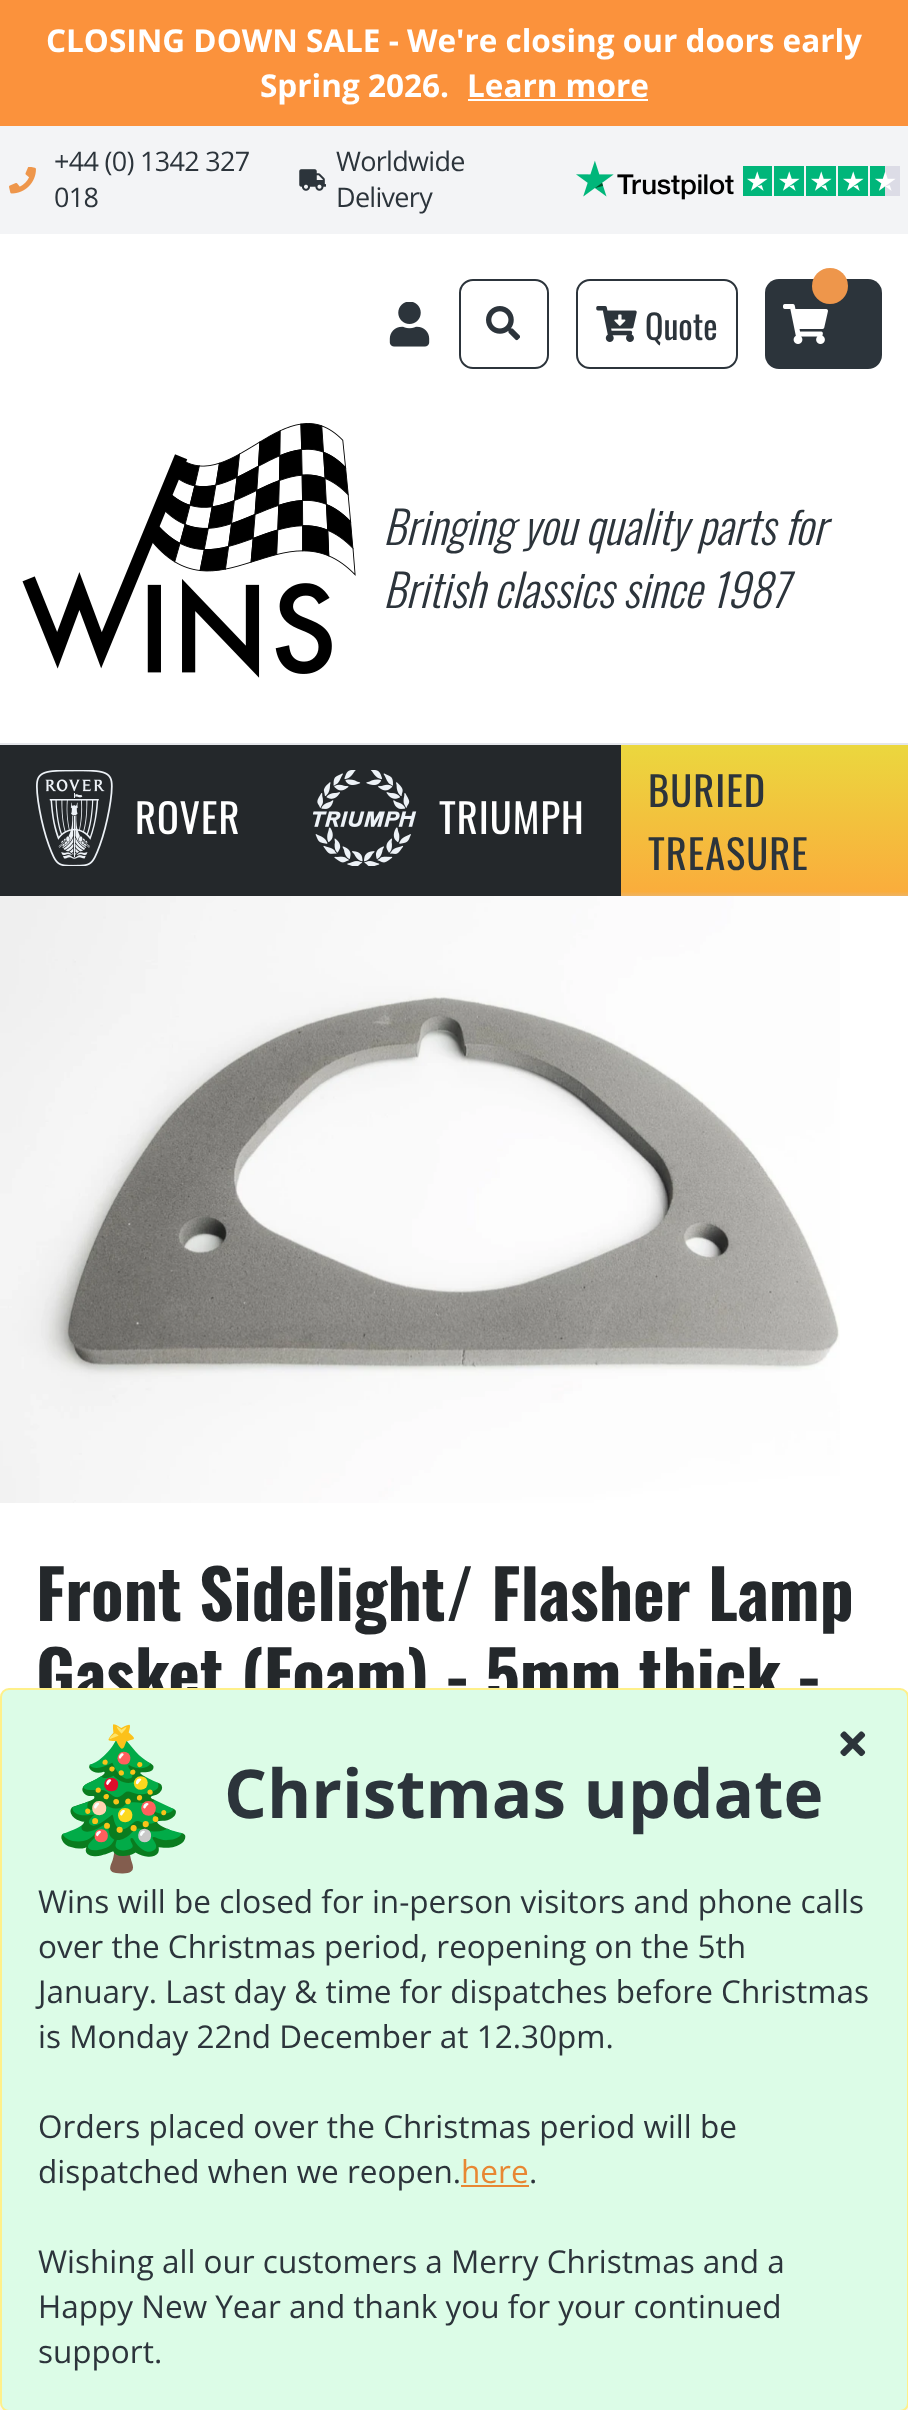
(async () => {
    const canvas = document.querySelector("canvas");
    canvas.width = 908;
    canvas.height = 2410;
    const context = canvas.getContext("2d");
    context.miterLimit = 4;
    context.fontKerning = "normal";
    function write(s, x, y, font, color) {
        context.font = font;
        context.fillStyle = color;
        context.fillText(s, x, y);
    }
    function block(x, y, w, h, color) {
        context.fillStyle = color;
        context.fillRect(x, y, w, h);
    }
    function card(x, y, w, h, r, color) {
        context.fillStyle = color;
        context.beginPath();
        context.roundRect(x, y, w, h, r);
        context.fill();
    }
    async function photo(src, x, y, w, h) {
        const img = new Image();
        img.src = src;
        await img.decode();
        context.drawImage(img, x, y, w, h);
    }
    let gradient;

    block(0, 0, 908, 2410, "rgb(255, 255, 255)");
    block(0, 0, 908, 126, "rgb(251, 146, 60)");
    write("CLOSING DOWN SALE - We're closing our doors early", 46, 52, "bold 31.5px Open Sans", "rgb(255, 255, 255)");
    write("Spring 2026.", 260, 97, "bold 31.5px Open Sans", "rgb(255, 255, 255)");
    write("Learn more", 467, 97, "bold 31.5px Open Sans", "rgb(255, 255, 255)");
    block(468, 99, 180, 2, "rgb(255, 255, 255)");
    block(0, 126, 908, 108, "rgb(243, 244, 246)");
    context.letterSpacing = "-0.7px";
    write("+44 (0) 1342 327", 54, 171, "27px Open Sans", "rgb(44, 52, 59)");
    await photo("media/1.png", 9, 167, 27, 27);
    write("018", 54, 207, "27px Open Sans", "rgb(44, 52, 59)");
    write("Worldwide", 336, 171, "27px Open Sans", "rgb(44, 52, 59)");
    await photo("media/2.png", 299, 169, 27, 22);
    write("Delivery", 336, 207, "27px Open Sans", "rgb(44, 52, 59)");
    await photo("media/3.png", 576, 160, 158, 40);
    await photo("media/4.png", 743, 166, 157, 30);
    block(0, 743, 908, 2, "rgb(229, 231, 235)");
    await photo("media/5.png", 389, 302, 41, 45);
    context.beginPath();
    context.roundRect(460, 280, 88, 88, 13);
    context.strokeStyle = "rgb(44, 52, 59)";
    context.lineWidth = 2;
    context.stroke();
    await photo("media/6.png", 486, 306, 34, 35);
    context.beginPath();
    context.roundRect(577, 280, 160, 88, 13);
    context.stroke();
    await photo("media/7.png", 596, 306, 41, 36);
    context.letterSpacing = "0px";
    write("Quote", 645, 340, "34px Oswald", "rgb(44, 52, 59)");
    card(765, 279, 117, 90, 14, "rgb(44, 52, 59)");
    context.fillStyle = "rgb(238, 150, 75)";
    context.beginPath();
    context.arc(830, 286, 18, 0, Math.PI * 2);
    context.fill();
    await photo("media/8.png", 783, 304, 45, 40);
    await photo("media/9.png", 22, 423, 334, 255);
    write("Bringing you quality parts for", 383, 545, "italic 300 45px Oswald", "rgb(44, 52, 59)");
    write("British classics since 1987", 383, 608, "italic 300 45px Oswald", "rgb(44, 52, 59)");
    block(0, 745, 621, 151, "rgb(36, 40, 43)");
    await photo("media/10.png", 36, 770, 77, 96);
    context.letterSpacing = "1px";
    write("ROVER", 135, 834, "40.5px Oswald", "rgb(255, 255, 255)");
    await photo("media/11.png", 313, 770, 104, 96);
    write("TRIUMPH", 439, 834, "40.5px Oswald", "rgb(255, 255, 255)");
    gradient = context.createLinearGradient(765, 896, 765, 745);
    gradient.addColorStop(0, "rgb(237, 180, 100)");
    gradient.addColorStop(0.03, "rgb(250, 173, 60)");
    gradient.addColorStop(1, "rgb(235, 215, 62)");
    context.fillStyle = gradient;
    context.fillRect(621, 745, 287, 151);
    write("BURIED", 648, 807, "40.5px Oswald", "rgb(44, 52, 59)");
    write("TREASURE", 648, 870, "40.5px Oswald", "rgb(44, 52, 59)");
    await photo("media/12.png", 0, 896, 840, 607);
    context.letterSpacing = "0px";
    write("Front Sidelight/ Flasher Lamp", 36, 1621, "bold 67.5px Oswald", "rgb(36, 40, 43)");
    write("Gasket (Foam) - 5mm thick -", 36, 1702, "bold 67.5px Oswald", "rgb(36, 40, 43)");
    context.fillStyle = "rgba(0, 0, 0, 0.1)";
    context.filter = "blur(17px)";
    context.beginPath();
    context.roundRect(7, 1717, 895, 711, 2);
    context.fill();
    context.filter = "none";
    context.fillStyle = "rgb(220, 252, 231)";
    context.beginPath();
    context.roundRect(1, 1689, 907, 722, 8);
    context.fill();
    context.strokeStyle = "rgb(254, 240, 138)";
    context.stroke();
    write("🎄", 38, 1845, "bold 135px Noto Color Emoji", "rgb(44, 52, 59)");
    write("Christmas update", 224, 1818, "bold 67.5px Open Sans", "rgb(44, 52, 59)");
    write("Wins will be closed for in-person visitors and phone calls", 38, 1913, "31.5px Open Sans", "rgb(44, 52, 59)");
    write("over the Christmas period, reopening on the 5th", 38, 1958, "31.5px Open Sans", "rgb(44, 52, 59)");
    write("January. Last day & time for dispatches before Christmas", 38, 2003, "31.5px Open Sans", "rgb(44, 52, 59)");
    write("is Monday 22nd December at 12.30pm.", 38, 2048, "31.5px Open Sans", "rgb(44, 52, 59)");
    write("Orders placed over the Christmas period will be", 38, 2138, "31.5px Open Sans", "rgb(44, 52, 59)");
    write("dispatched when we reopen.", 38, 2183, "31.5px Open Sans", "rgb(44, 52, 59)");
    write("here", 461, 2183, "31.5px Open Sans", "rgb(232, 135, 51)");
    block(461, 2185, 68, 2, "rgb(232, 135, 51)");
    write(".", 529, 2183, "31.5px Open Sans", "rgb(44, 52, 59)");
    write("Wishing all our customers a Merry Christmas and a", 38, 2273, "31.5px Open Sans", "rgb(44, 52, 59)");
    write("Happy New Year and thank you for your continued", 38, 2318, "31.5px Open Sans", "rgb(44, 52, 59)");
    write("support.", 38, 2363, "31.5px Open Sans", "rgb(44, 52, 59)");
    await photo("media/13.png", 840, 1731, 26, 26);
})();
